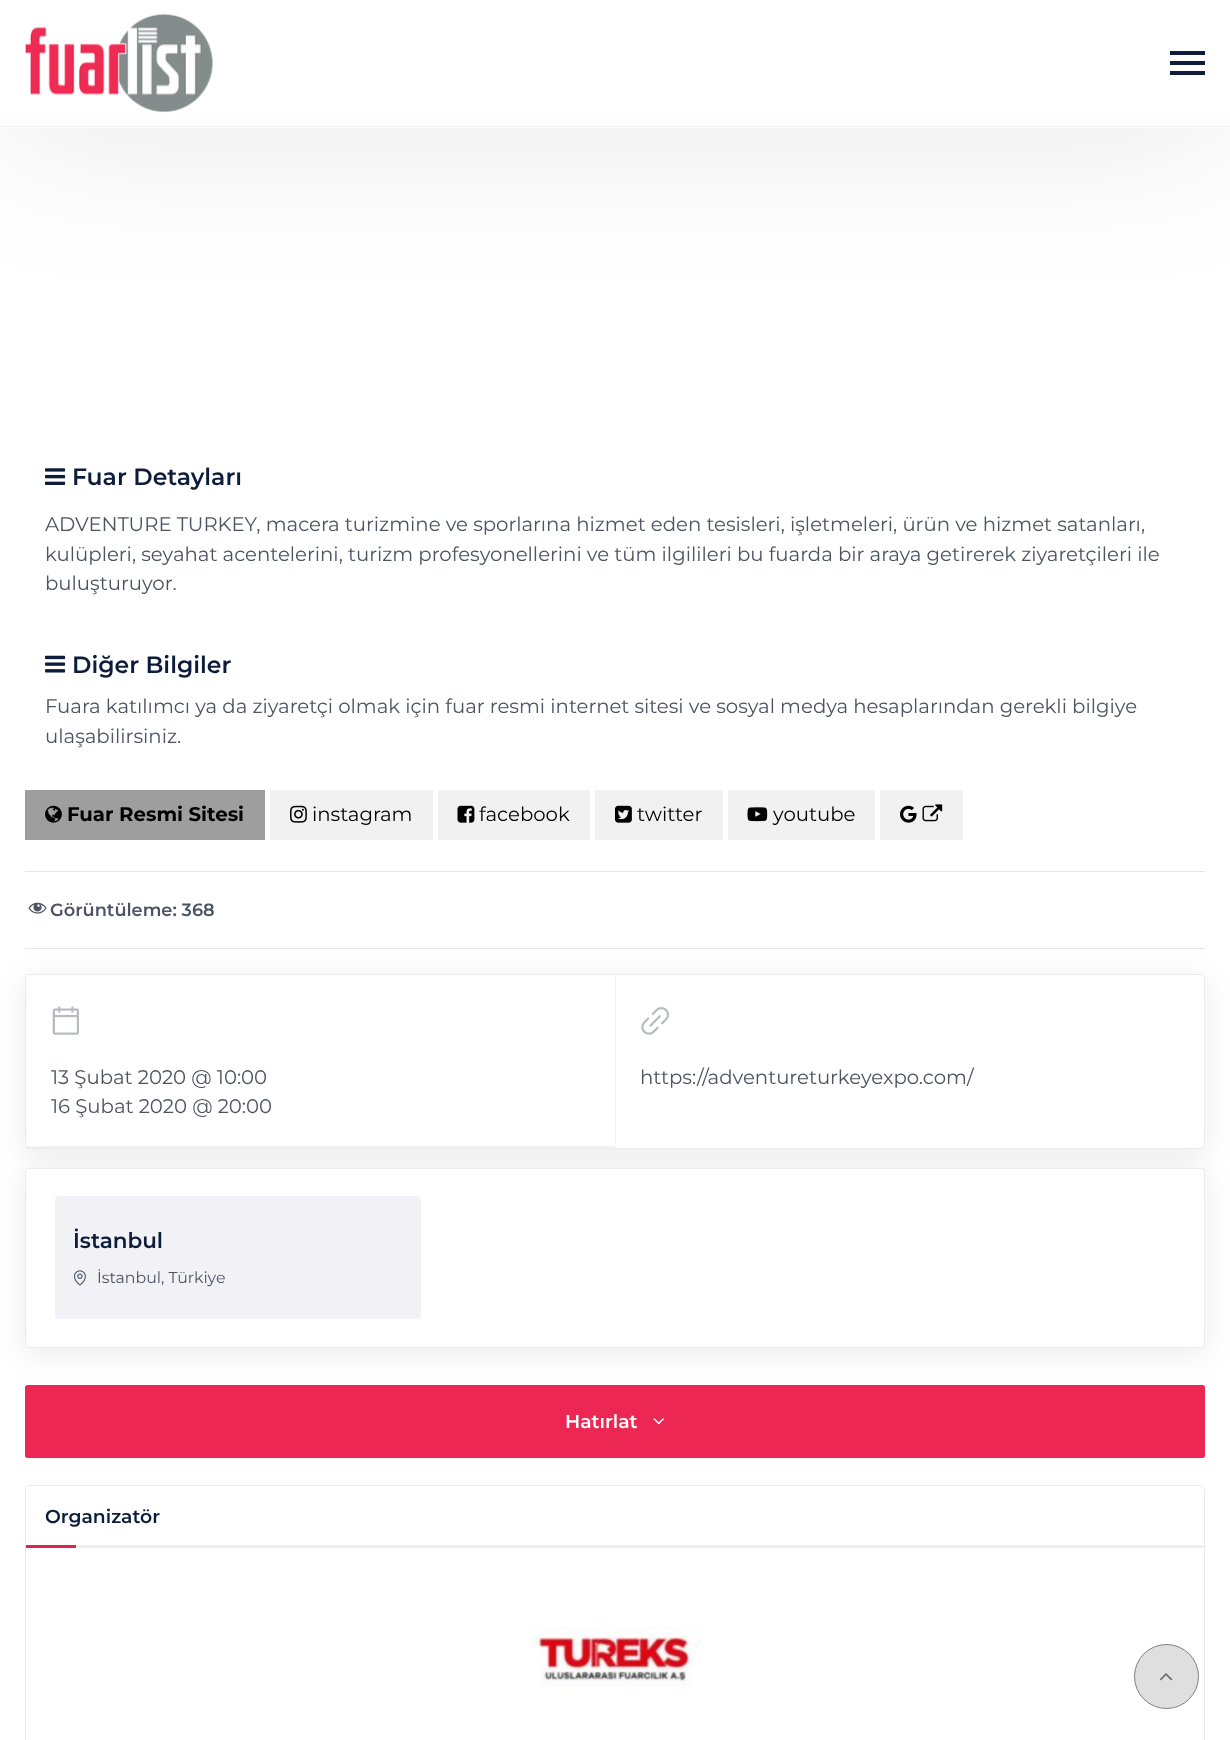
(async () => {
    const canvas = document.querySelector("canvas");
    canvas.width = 1230;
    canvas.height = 1740;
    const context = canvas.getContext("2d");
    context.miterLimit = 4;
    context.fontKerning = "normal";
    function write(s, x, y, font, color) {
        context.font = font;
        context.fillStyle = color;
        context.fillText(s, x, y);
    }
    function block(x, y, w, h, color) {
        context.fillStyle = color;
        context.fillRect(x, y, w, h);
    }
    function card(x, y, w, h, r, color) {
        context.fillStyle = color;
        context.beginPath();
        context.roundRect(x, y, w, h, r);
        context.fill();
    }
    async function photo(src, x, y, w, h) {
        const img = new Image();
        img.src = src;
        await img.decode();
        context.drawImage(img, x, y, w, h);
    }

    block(0, 0, 1230, 1740, "rgb(255, 255, 255)");
    context.fillStyle = "rgba(0, 0, 0, 0.1)";
    context.filter = "blur(81px)";
    context.beginPath();
    context.rect(0, 0, 1230, 128);
    context.fill();
    context.filter = "none";
    block(0, 0, 1230, 128, "rgb(255, 255, 255)");
    block(0, 126, 1230, 1, "rgb(238, 241, 246)");
    await photo("media/1.png", 25, 13, 188, 100);
    block(1170, 61, 35, 4, "rgb(12, 28, 58)");
    block(1170, 51, 35, 4, "rgb(12, 28, 58)");
    block(1170, 71, 35, 4, "rgb(12, 28, 58)");
    block(76, 1545, 1128, 3, "rgb(238, 239, 241)");
    await photo("media/2.png", 45, 468, 21, 17);
    write("Fuar Detayları", 72, 485, "600 23.5px Montserrat", "rgb(12, 28, 58)");
    write("ADVENTURE TURKEY, macera turizmine ve sporlarına hizmet eden tesisleri, işletmeleri, ürün ve hizmet satanları,", 45, 531, "19.7px Montserrat", "rgb(76, 83, 97)");
    write("kulüpleri, seyahat acentelerini, turizm profesyonellerini ve tüm ilgilileri bu fuarda bir araya getirerek ziyaretçileri ile", 45, 561, "19.7px Montserrat", "rgb(76, 83, 97)");
    write("buluşturuyor.", 45, 590, "19.7px Montserrat", "rgb(76, 83, 97)");
    await photo("media/3.png", 45, 655, 21, 18);
    write("Diğer Bilgiler", 72, 673, "600 23.5px Montserrat", "rgb(12, 28, 58)");
    write("Fuara katılımcı ya da ziyaretçi olmak için fuar resmi internet sitesi ve sosyal medya hesaplarından gerekli bilgiye", 45, 713, "19.7px Montserrat", "rgb(76, 83, 97)");
    write("ulaşabilirsiniz.", 45, 743, "19.7px Montserrat", "rgb(76, 83, 97)");
    block(25, 790, 240, 50, "rgb(158, 158, 158)");
    await photo("media/4.png", 45, 805, 17, 18);
    write("Fuar Resmi Sitesi", 67, 821, "bold 19.7px Montserrat", "rgb(0, 0, 0)");
    block(270, 790, 163, 50, "rgb(241, 241, 241)");
    await photo("media/5.png", 290, 805, 17, 18);
    write("instagram", 312, 821, "19.7px Montserrat", "rgb(0, 0, 0)");
    block(438, 790, 152, 50, "rgb(241, 241, 241)");
    await photo("media/6.png", 457, 805, 18, 18);
    write("facebook", 479, 821, "19.7px Montserrat", "rgb(0, 0, 0)");
    block(595, 790, 128, 50, "rgb(241, 241, 241)");
    await photo("media/7.png", 615, 805, 17, 18);
    write("twitter", 637, 821, "19.7px Montserrat", "rgb(0, 0, 0)");
    block(728, 790, 147, 50, "rgb(241, 241, 241)");
    await photo("media/8.png", 747, 807, 21, 15);
    write("youtube", 773, 821, "19.7px Montserrat", "rgb(0, 0, 0)");
    block(880, 790, 83, 50, "rgb(241, 241, 241)");
    await photo("media/9.png", 900, 805, 17, 18);
    await photo("media/10.png", 922, 804, 21, 18);
    block(25, 871, 1180, 1, "rgb(228, 229, 231)");
    await photo("media/11.png", 28, 902, 19, 12);
    write("Görüntüleme: 368", 50, 916, "600 17.75px Montserrat", "rgb(76, 83, 97)");
    context.fillStyle = "rgba(0, 0, 0, 0.08)";
    context.filter = "blur(15.5px)";
    context.beginPath();
    context.roundRect(25, 980, 1180, 175, 4);
    context.fill();
    context.filter = "none";
    block(25, 948, 1180, 1, "rgb(228, 229, 231)");
    context.fillStyle = "rgb(255, 255, 255)";
    context.beginPath();
    context.roundRect(25.5, 974.5, 1179, 174, 3.5);
    context.fill();
    context.strokeStyle = "rgb(235, 235, 235)";
    context.stroke();
    context.fillStyle = "rgba(0, 0, 0, 0.08)";
    context.filter = "blur(15.5px)";
    context.beginPath();
    context.roundRect(25, 1174, 1180, 180, 4);
    context.fill();
    context.filter = "none";
    context.fillStyle = "rgb(242, 242, 245)";
    context.beginPath();
    context.moveTo(616, 975);
    context.lineTo(616, 1148);
    context.lineTo(615, 1146);
    context.lineTo(615, 975);
    context.closePath();
    context.fill();
    context.fillStyle = "rgba(0, 0, 65, 0.05)";
    context.beginPath();
    context.moveTo(616, 1148);
    context.lineTo(26, 1148);
    context.lineTo(26, 1146);
    context.lineTo(615, 1146);
    context.closePath();
    context.fill();
    await photo("media/12.png", 52, 1006, 27, 29);
    write("13 Şubat 2020 @ 10:00", 51, 1084, "19.7px Montserrat", "rgb(76, 83, 97)");
    write("16 Şubat 2020 @ 20:00", 51, 1113, "19.7px Montserrat", "rgb(76, 83, 97)");
    await photo("media/13.png", 641, 1007, 28, 28);
    write("https://adventureturkeyexpo.com/", 640, 1084, "19.7px Montserrat", "rgb(76, 83, 97)");
    context.fillStyle = "rgb(255, 255, 255)";
    context.beginPath();
    context.roundRect(25.5, 1168.5, 1179, 179, 3.5);
    context.fill();
    context.stroke();
    card(55, 1196, 366, 123, 4, "rgb(242, 242, 246)");
    write("İstanbul", 73, 1248, "600 21.5px Montserrat", "rgb(12, 28, 58)");
    await photo("media/14.png", 74, 1270, 12, 16);
    write("İstanbul, Türkiye", 97, 1283, "15.75px Montserrat", "rgb(76, 83, 97)");
    context.fillStyle = "rgb(236, 39, 84)";
    context.beginPath();
    context.roundRect(26.5, 1386.5, 1177, 70, 1);
    context.fill();
    context.strokeStyle = "rgb(236, 39, 84)";
    context.lineWidth = 3;
    context.stroke();
    write("Hatırlat", 565, 1428, "600 18.75px Montserrat", "rgb(255, 255, 255)");
    await photo("media/15.png", 653, 1418, 11, 7);
    context.beginPath();
    context.roundRect(25.5, 1485.5, 1179, 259, 3.5);
    context.strokeStyle = "rgb(235, 235, 235)";
    context.lineWidth = 1;
    context.stroke();
    write("Organizatör", 45, 1523, "600 18.75px Montserrat", "rgb(12, 28, 58)");
    block(26, 1545, 50, 3, "rgb(220, 38, 82)");
    await photo("media/16.png", 531, 1626, 172, 61);
    context.fillStyle = "rgb(223, 223, 223)";
    context.beginPath();
    context.arc(1166.5, 1676.5, 32, 0, Math.PI * 2);
    context.fill();
    context.strokeStyle = "rgb(128, 128, 128)";
    context.stroke();
    await photo("media/17.png", 1159, 1673, 14, 8);
})();
